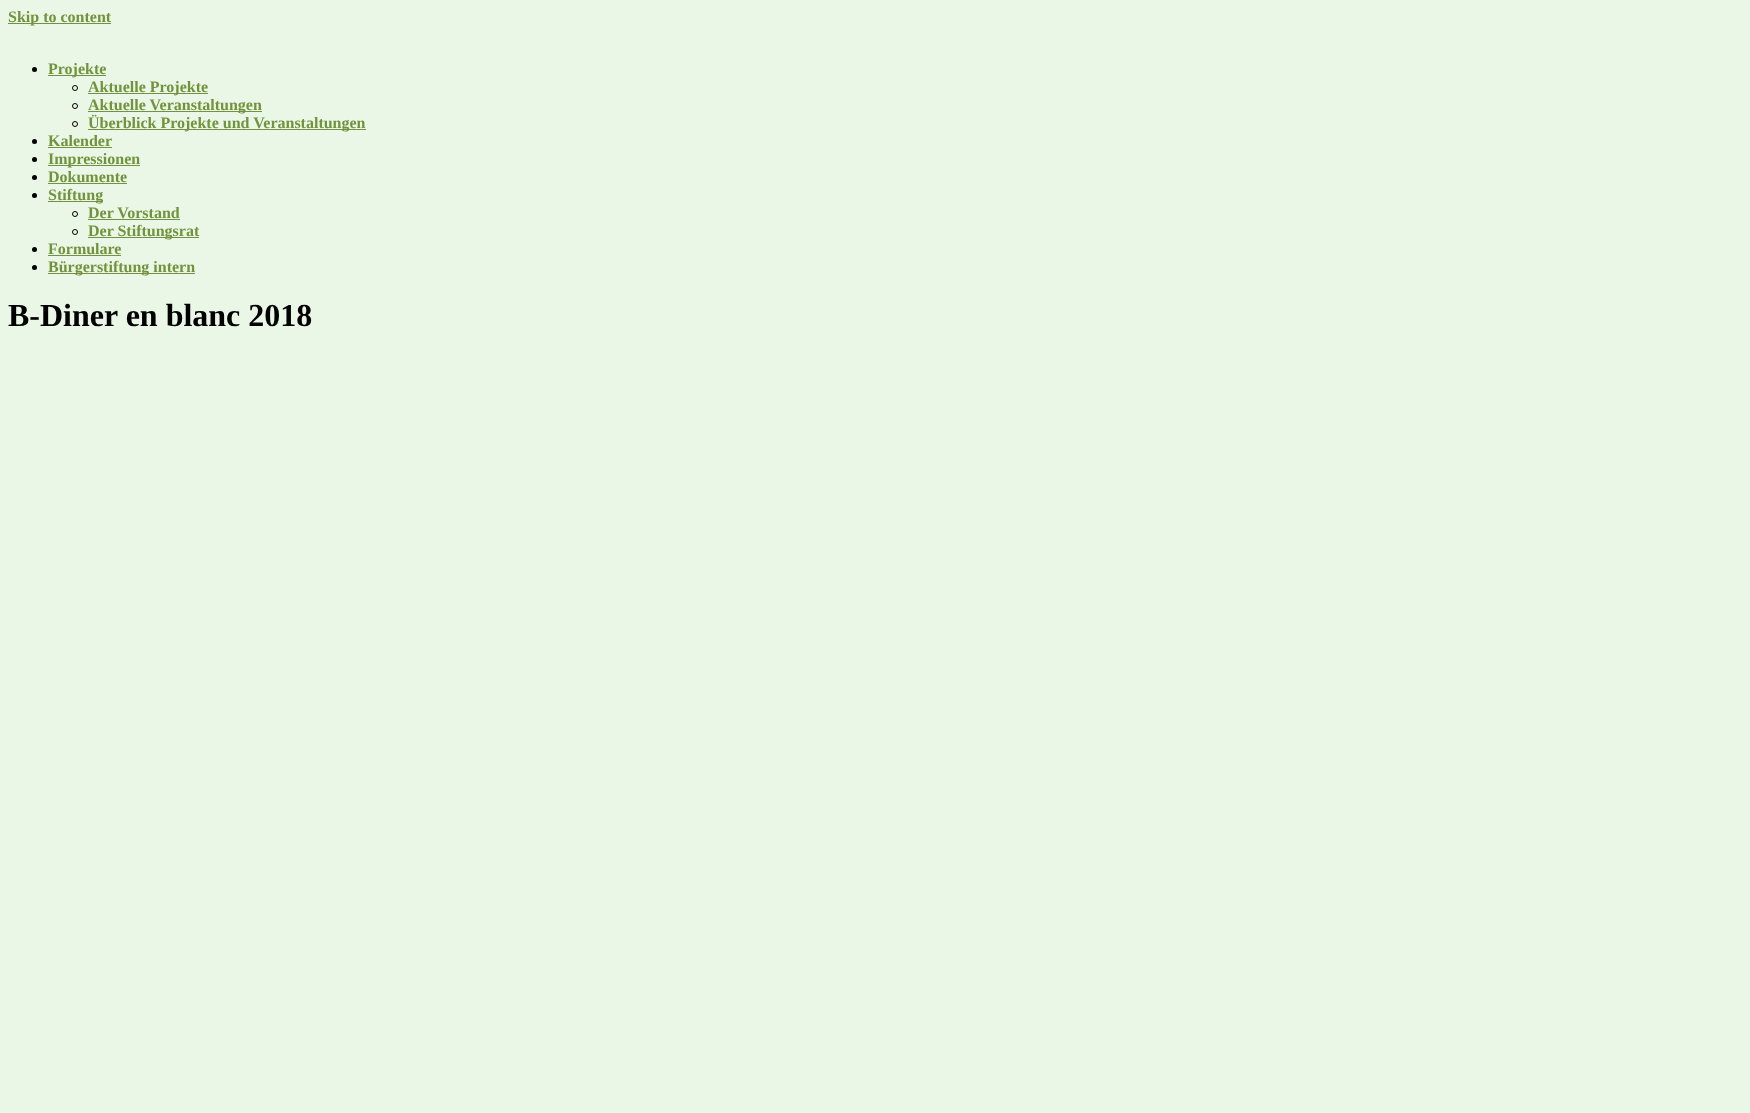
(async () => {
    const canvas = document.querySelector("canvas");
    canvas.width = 1750;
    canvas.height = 1113;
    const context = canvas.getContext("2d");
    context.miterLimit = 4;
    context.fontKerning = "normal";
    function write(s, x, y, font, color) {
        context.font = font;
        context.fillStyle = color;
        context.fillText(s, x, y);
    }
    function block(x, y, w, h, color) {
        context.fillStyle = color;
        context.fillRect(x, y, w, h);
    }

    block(0, 0, 1750, 1113, "rgb(234, 247, 230)");
    block(8, 23, 103, 1, "rgb(113, 147, 61)");
    write("Skip to content", 8, 22, "bold 16px Liberation Serif", "rgb(113, 147, 61)");
    context.fillStyle = "rgb(0, 0, 0)";
    context.beginPath();
    context.arc(34.5, 69.5, 2.5, 0, Math.PI * 2);
    context.fill();
    block(48, 75, 58, 1, "rgb(113, 147, 61)");
    write("Projekte", 48, 74, "bold 16px Liberation Serif", "rgb(113, 147, 61)");
    context.beginPath();
    context.arc(75, 88, 2.5, 0, Math.PI * 2);
    context.strokeStyle = "rgb(0, 0, 0)";
    context.stroke();
    block(88, 93, 120, 1, "rgb(113, 147, 61)");
    write("Aktuelle Projekte", 88, 92, "bold 16px Liberation Serif", "rgb(113, 147, 61)");
    context.beginPath();
    context.arc(75, 106, 2.5, 0, Math.PI * 2);
    context.stroke();
    block(88, 111, 174, 1, "rgb(113, 147, 61)");
    write("Aktuelle Veranstaltungen", 88, 110, "bold 16px Liberation Serif", "rgb(113, 147, 61)");
    context.beginPath();
    context.arc(75, 124, 2.5, 0, Math.PI * 2);
    context.stroke();
    block(88, 129, 278, 1, "rgb(113, 147, 61)");
    write("Überblick Projekte und Veranstaltungen", 88, 128, "bold 16px Liberation Serif", "rgb(113, 147, 61)");
    context.fillStyle = "rgb(0, 0, 0)";
    context.beginPath();
    context.arc(34.5, 141.5, 2.5, 0, Math.PI * 2);
    context.fill();
    write("Kalender", 48, 146, "bold 16px Liberation Serif", "rgb(113, 147, 61)");
    block(48, 147, 64, 1, "rgb(113, 147, 61)");
    context.fillStyle = "rgb(0, 0, 0)";
    context.beginPath();
    context.arc(34.5, 159.5, 2.5, 0, Math.PI * 2);
    context.fill();
    block(48, 165, 92, 1, "rgb(113, 147, 61)");
    write("Impressionen", 48, 164, "bold 16px Liberation Serif", "rgb(113, 147, 61)");
    context.fillStyle = "rgb(0, 0, 0)";
    context.beginPath();
    context.arc(34.5, 177.5, 2.5, 0, Math.PI * 2);
    context.fill();
    write("Dokumente", 48, 182, "bold 16px Liberation Serif", "rgb(113, 147, 61)");
    block(48, 183, 79, 1, "rgb(113, 147, 61)");
    context.fillStyle = "rgb(0, 0, 0)";
    context.beginPath();
    context.arc(34.5, 195.5, 2.5, 0, Math.PI * 2);
    context.fill();
    block(48, 201, 55, 1, "rgb(113, 147, 61)");
    write("Stiftung", 48, 200, "bold 16px Liberation Serif", "rgb(113, 147, 61)");
    context.beginPath();
    context.arc(75, 214, 2.5, 0, Math.PI * 2);
    context.stroke();
    write("Der Vorstand", 88, 218, "bold 16px Liberation Serif", "rgb(113, 147, 61)");
    block(88, 219, 92, 1, "rgb(113, 147, 61)");
    context.beginPath();
    context.arc(75, 232, 2.5, 0, Math.PI * 2);
    context.stroke();
    block(88, 237, 111, 1, "rgb(113, 147, 61)");
    write("Der Stiftungsrat", 88, 236, "bold 16px Liberation Serif", "rgb(113, 147, 61)");
    context.fillStyle = "rgb(0, 0, 0)";
    context.beginPath();
    context.arc(34.5, 249.5, 2.5, 0, Math.PI * 2);
    context.fill();
    write("Formulare", 48, 254, "bold 16px Liberation Serif", "rgb(113, 147, 61)");
    block(48, 255, 73, 1, "rgb(113, 147, 61)");
    context.fillStyle = "rgb(0, 0, 0)";
    context.beginPath();
    context.arc(34.5, 267.5, 2.5, 0, Math.PI * 2);
    context.fill();
    block(48, 273, 147, 1, "rgb(113, 147, 61)");
    write("Bürgerstiftung intern", 48, 272, "bold 16px Liberation Serif", "rgb(113, 147, 61)");
    write("B-Diner en blanc 2018", 8, 326, "bold 32px Liberation Serif", "rgb(0, 0, 0)");
})();
